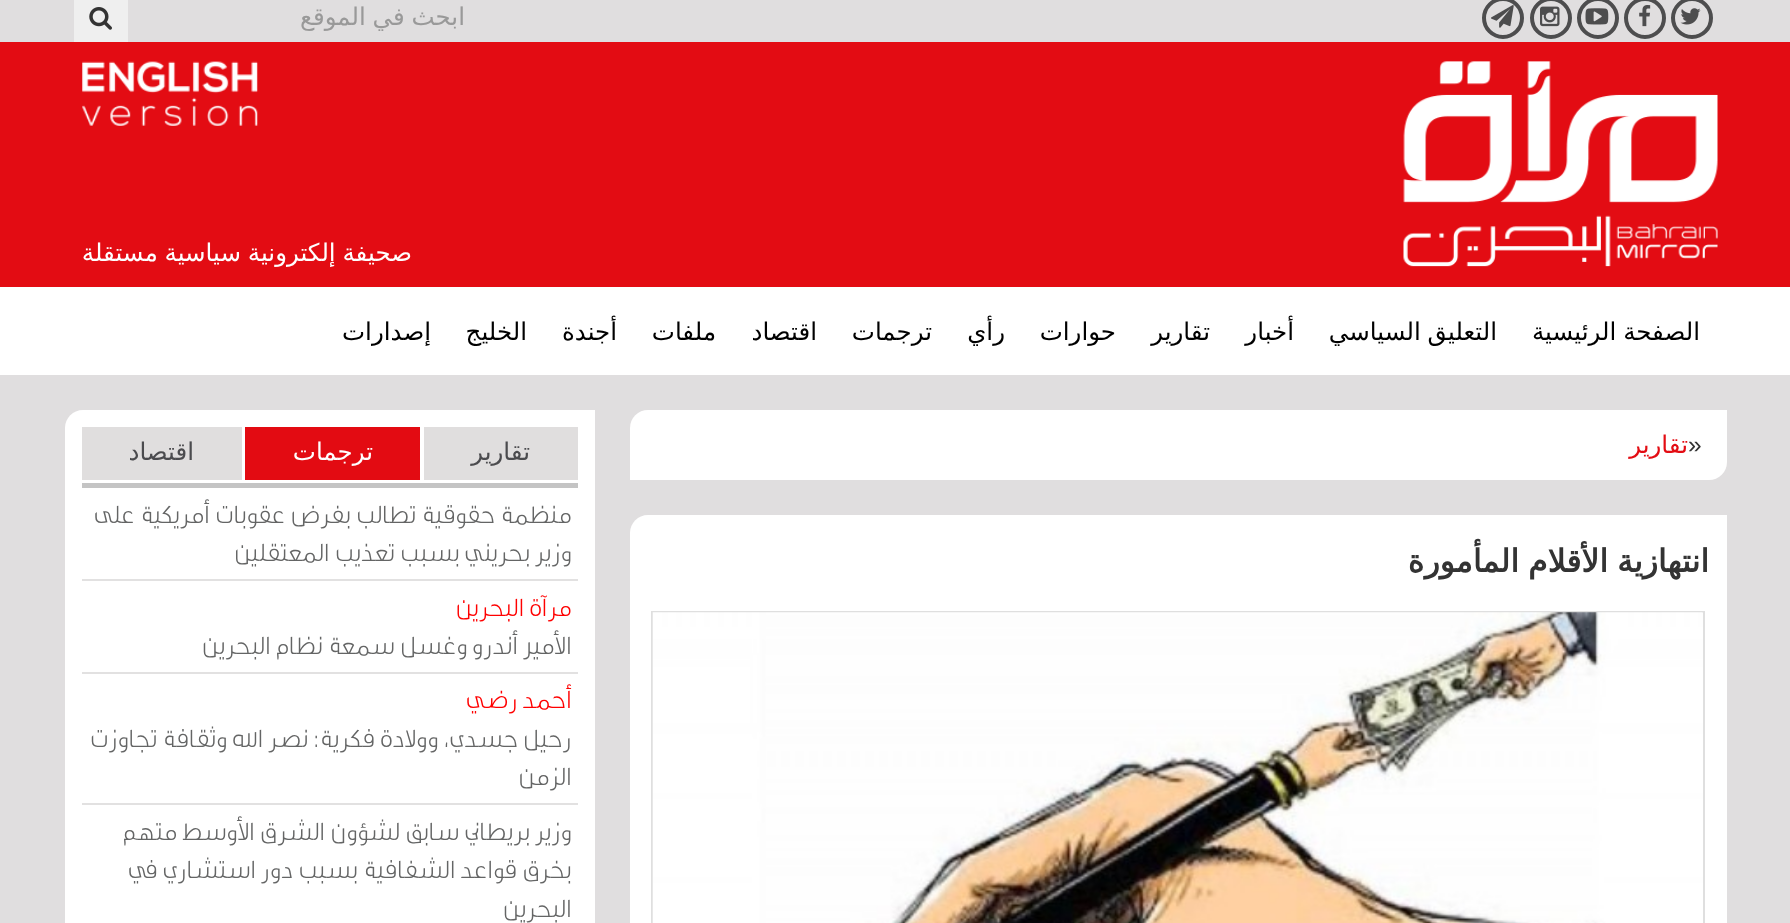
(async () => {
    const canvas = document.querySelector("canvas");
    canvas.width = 1790;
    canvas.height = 923;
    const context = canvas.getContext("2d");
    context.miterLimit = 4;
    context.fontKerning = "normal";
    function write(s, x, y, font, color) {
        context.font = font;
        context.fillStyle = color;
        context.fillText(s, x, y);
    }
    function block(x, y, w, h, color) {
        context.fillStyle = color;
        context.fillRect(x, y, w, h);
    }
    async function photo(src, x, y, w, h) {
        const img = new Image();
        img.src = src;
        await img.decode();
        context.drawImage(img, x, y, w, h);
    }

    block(0, 0, 1790, 923, "rgb(224, 222, 223)");
    context.beginPath();
    context.arc(1692, 18, 19, 0, Math.PI * 2);
    context.strokeStyle = "rgb(77, 77, 78)";
    context.lineWidth = 4;
    context.stroke();
    await photo("media/1.png", 1680, 8, 21, 17);
    context.beginPath();
    context.arc(1645, 18, 19, 0, Math.PI * 2);
    context.stroke();
    await photo("media/2.png", 1639, 5, 12, 22);
    context.beginPath();
    context.arc(1598, 18, 19, 0, Math.PI * 2);
    context.stroke();
    await photo("media/3.png", 1585, 8, 24, 17);
    context.beginPath();
    context.arc(1551, 18, 19, 0, Math.PI * 2);
    context.stroke();
    await photo("media/4.png", 1540, 6, 20, 21);
    context.beginPath();
    context.arc(1503, 18, 19, 0, Math.PI * 2);
    context.stroke();
    await photo("media/5.png", 1491, 5, 23, 23);
    context.wordSpacing = "-1px";
    context.direction = "rtl";
    write("ابحث في الموقع", 465, 25, "24.5px DejaVu Sans", "rgb(153, 153, 153)");
    block(74, 0, 54, 42, "rgb(239, 239, 239)");
    await photo("media/6.png", 89, 7, 23, 23);
    block(0, 42, 1790, 245, "rgb(227, 12, 19)");
    await photo("media/7.png", 1403, 61, 315, 206);
    await photo("media/8.png", 82, 61, 176, 65);
    write("صحيفة إلكترونية سياسية مستقلة", 412, 261, "24.5px DejaVu Sans", "rgb(255, 255, 255)");
    block(0, 287, 1790, 88, "rgb(255, 255, 255)");
    write("الصفحة الرئيسية", 1700, 340, "24.5px DejaVu Sans", "rgb(0, 0, 0)");
    write("التعليق السياسي", 1497, 340, "24.5px DejaVu Sans", "rgb(0, 0, 0)");
    context.wordSpacing = "0px";
    write("أخبار", 1294, 340, "24.5px DejaVu Sans", "rgb(0, 0, 0)");
    write("تقارير", 1210, 340, "24.5px DejaVu Sans", "rgb(0, 0, 0)");
    write("حوارات", 1116, 340, "24.5px DejaVu Sans", "rgb(0, 0, 0)");
    write("رأي", 1005, 340, "24.5px DejaVu Sans", "rgb(0, 0, 0)");
    write("ترجمات", 932, 340, "24.5px DejaVu Sans", "rgb(0, 0, 0)");
    write("اقتصاد", 817, 340, "24.5px DejaVu Sans", "rgb(0, 0, 0)");
    write("ملفات", 716, 340, "24.5px DejaVu Sans", "rgb(0, 0, 0)");
    write("أجندة", 617, 340, "24.5px DejaVu Sans", "rgb(0, 0, 0)");
    write("الخليج", 527, 340, "24.5px DejaVu Sans", "rgb(0, 0, 0)");
    write("إصدارات", 431, 340, "24.5px DejaVu Sans", "rgb(0, 0, 0)");
    context.fillStyle = "rgb(255, 255, 255)";
    context.beginPath();
    context.roundRect(630, 410, 1097, 70, [18, 0, 18, 0]);
    context.fill();
    context.direction = "ltr";
    write("»", 1688, 453, "24.5px Liberation Sans", "rgb(51, 51, 51)");
    context.direction = "rtl";
    write("تقارير", 1688, 453, "24.5px DejaVu Sans", "rgb(227, 12, 19)");
    context.fillStyle = "rgb(255, 255, 255)";
    context.beginPath();
    context.moveTo(648, 515);
    context.lineTo(1727, 515);
    context.lineTo(1727, 923);
    context.bezierCurveTo(1727, 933, 1719, 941, 1709, 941);
    context.lineTo(630, 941);
    context.lineTo(630, 533);
    context.bezierCurveTo(630, 523, 638, 515, 648, 515);
    context.closePath();
    context.fill();
    context.wordSpacing = "-1px";
    write("انتهازية الأقلام المأمورة", 1709, 572, "bold 31.5px DejaVu Sans", "rgb(51, 51, 51)");
    context.strokeStyle = "rgb(223, 223, 223)";
    context.lineWidth = 2;
    context.strokeRect(652, 612, 1052, 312);
    await photo("media/9.png", 652, 612, 1051, 311);
    context.fillStyle = "rgb(255, 255, 255)";
    context.beginPath();
    context.moveTo(83, 410);
    context.lineTo(595, 410);
    context.lineTo(595, 923);
    context.bezierCurveTo(595, 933, 587, 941, 577, 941);
    context.lineTo(65, 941);
    context.lineTo(65, 428);
    context.bezierCurveTo(65, 418, 73, 410, 83, 410);
    context.closePath();
    context.fill();
    block(82, 483, 496, 5, "rgb(196, 196, 196)");
    block(424, 427, 154, 53, "rgb(224, 222, 222)");
    context.wordSpacing = "0px";
    write("تقارير", 530, 460, "24.5px DejaVu Sans", "rgb(75, 75, 78)");
    block(245, 427, 175, 53, "rgb(227, 11, 18)");
    write("ترجمات", 373, 460, "24.5px DejaVu Sans", "rgb(255, 255, 255)");
    block(82, 427, 160, 53, "rgb(224, 222, 222)");
    write("اقتصاد", 194, 460, "24.5px DejaVu Sans", "rgb(75, 75, 78)");
    write("منظمة حقوقية تطالب بفرض عقوبات أمريكية على", 572, 523, "27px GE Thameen", "rgb(100, 101, 101)");
    write("وزير بحريني بسبب تعذيب المعتقلين", 572, 561, "27px GE Thameen", "rgb(100, 101, 101)");
    block(82, 579, 496, 2, "rgb(226, 225, 225)");
    write("مرآة البحرين", 572, 616, "27px GE Thameen", "rgb(255, 0, 0)");
    write("الأمير أندرو وغسل سمعة نظام البحرين", 572, 654, "27px GE Thameen", "rgb(100, 101, 101)");
    block(82, 672, 496, 2, "rgb(226, 225, 225)");
    write("أحمد رضي", 572, 708, "27px GE Thameen", "rgb(255, 0, 0)");
    write("رحيل جسدي، وولادة فكرية: نصر الله وثقافة تجاوزت", 572, 747, "27px GE Thameen", "rgb(100, 101, 101)");
    write("الزمن", 572, 785, "27px GE Thameen", "rgb(100, 101, 101)");
    block(82, 803, 496, 2, "rgb(226, 225, 225)");
    write("وزير بريطاني سابق لشؤون الشرق الأوسط متهم", 572, 840, "27px GE Thameen", "rgb(100, 101, 101)");
    write("بخرق قواعد الشفافية بسبب دور استشاري في", 572, 878, "27px GE Thameen", "rgb(100, 101, 101)");
    write("البحرين", 572, 917, "27px GE Thameen", "rgb(100, 101, 101)");
})();
